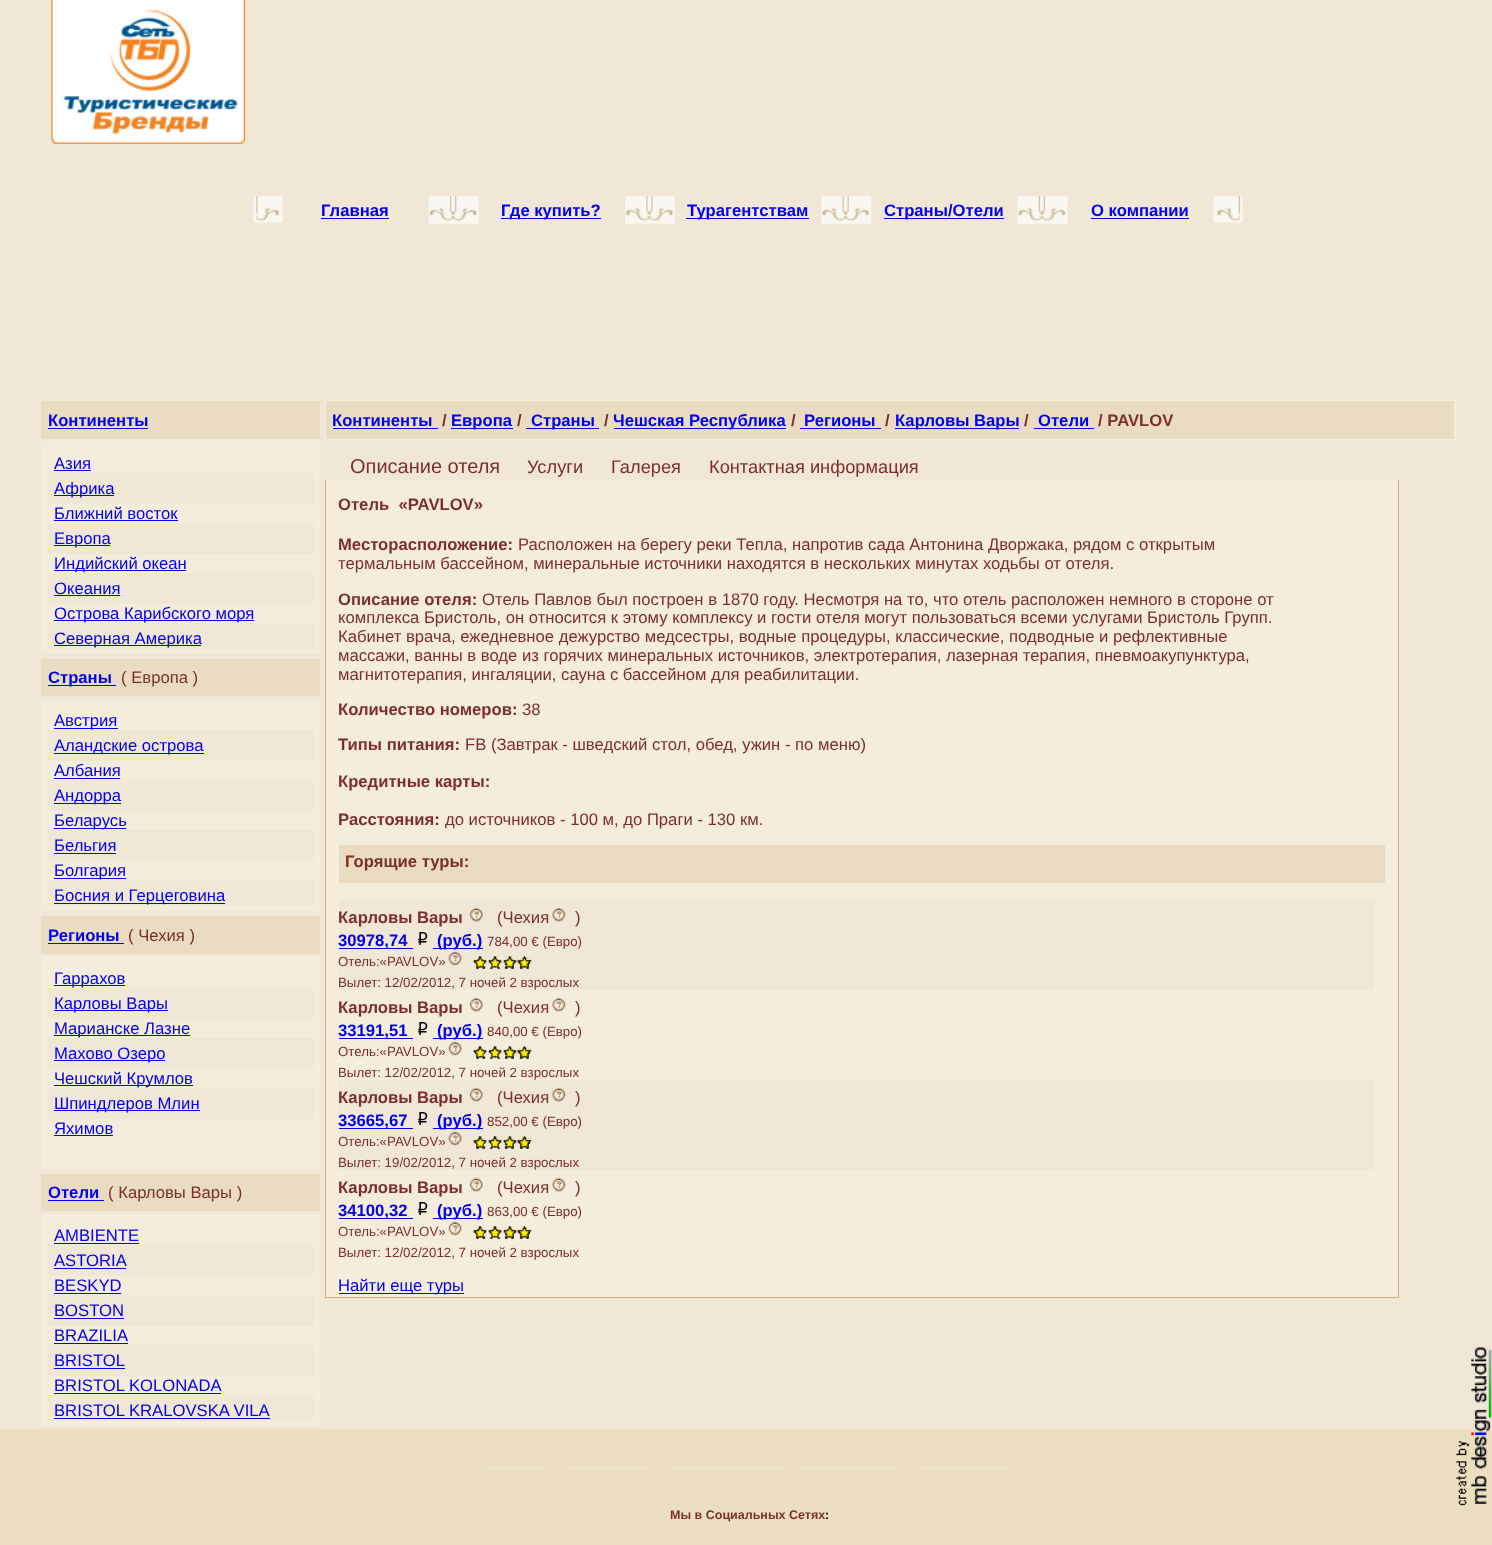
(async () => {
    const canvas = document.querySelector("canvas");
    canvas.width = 1492;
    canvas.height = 1545;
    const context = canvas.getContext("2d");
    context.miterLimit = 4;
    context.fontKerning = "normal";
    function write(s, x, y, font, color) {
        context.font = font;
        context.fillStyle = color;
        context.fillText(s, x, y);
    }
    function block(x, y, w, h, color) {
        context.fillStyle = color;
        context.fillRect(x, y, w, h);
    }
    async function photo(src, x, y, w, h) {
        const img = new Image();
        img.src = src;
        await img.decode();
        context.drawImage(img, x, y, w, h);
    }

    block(0, 0, 1492, 1545, "rgb(240, 231, 215)");
    await photo("media/1.png", 253, 196, 30, 27);
    write("Главная", 321, 216, "bold 16.67px Liberation Sans", "rgb(0, 0, 238)");
    block(321, 218, 68, 1, "rgb(0, 0, 238)");
    await photo("media/2.png", 428, 196, 51, 28);
    block(501, 218, 100, 1, "rgb(0, 0, 238)");
    write("Где купить?", 501, 216, "bold 16.67px Liberation Sans", "rgb(0, 0, 238)");
    await photo("media/3.png", 625, 196, 50, 28);
    block(686, 218, 123, 1, "rgb(0, 0, 238)");
    write("Турагентствам", 687, 216, "bold 16.67px Liberation Sans", "rgb(0, 0, 238)");
    await photo("media/4.png", 821, 196, 51, 28);
    block(884, 218, 120, 1, "rgb(0, 0, 238)");
    write("Страны/Отели", 884, 216, "bold 16.67px Liberation Sans", "rgb(0, 0, 238)");
    await photo("media/5.png", 1017, 196, 51, 28);
    write("О компании", 1091, 216, "bold 16.67px Liberation Sans", "rgb(0, 0, 238)");
    block(1091, 218, 98, 1, "rgb(0, 0, 238)");
    await photo("media/6.png", 1213, 196, 30, 27);
    block(41, 401, 279, 38, "rgb(233, 220, 195)");
    write("Континенты", 48, 426, "bold 16.67px Liberation Sans", "rgb(0, 0, 238)");
    block(48, 428, 100, 1, "rgb(0, 0, 238)");
    block(41, 441, 279, 213, "rgb(245, 237, 220)");
    write("Азия", 54, 469, "16.67px Liberation Sans", "rgb(0, 0, 238)");
    block(54, 470, 37, 1, "rgb(0, 0, 238)");
    block(48, 473, 266, 31, "rgb(240, 231, 215)");
    block(54, 495, 60, 1, "rgb(0, 0, 238)");
    write("Африка", 54, 494, "16.67px Liberation Sans", "rgb(0, 0, 238)");
    write("Ближний восток", 54, 519, "16.67px Liberation Sans", "rgb(0, 0, 238)");
    block(54, 520, 124, 1, "rgb(0, 0, 238)");
    block(48, 523, 266, 31, "rgb(240, 231, 215)");
    block(54, 545, 56, 1, "rgb(0, 0, 238)");
    write("Европа", 54, 544, "16.67px Liberation Sans", "rgb(0, 0, 238)");
    block(54, 570, 132, 1, "rgb(0, 0, 238)");
    write("Индийский океан", 54, 569, "16.67px Liberation Sans", "rgb(0, 0, 238)");
    block(48, 573, 266, 31, "rgb(240, 231, 215)");
    write("Океания", 54, 594, "16.67px Liberation Sans", "rgb(0, 0, 238)");
    block(54, 595, 66, 1, "rgb(0, 0, 238)");
    block(54, 620, 200, 1, "rgb(0, 0, 238)");
    write("Острова Карибского моря", 54, 619, "16.67px Liberation Sans", "rgb(0, 0, 238)");
    block(48, 623, 266, 25, "rgb(240, 231, 215)");
    block(54, 645, 147, 1, "rgb(0, 0, 238)");
    write("Северная Америка", 54, 644, "16.67px Liberation Sans", "rgb(0, 0, 238)");
    block(41, 659, 279, 37, "rgb(233, 220, 195)");
    block(48, 685, 68, 1, "rgb(0, 0, 238)");
    write("Страны", 48, 683, "bold 16.67px Liberation Sans", "rgb(0, 0, 238)");
    write("( Европа )", 121, 683, "16.67px Liberation Sans", "rgb(125, 47, 43)");
    block(41, 699, 279, 212, "rgb(245, 237, 220)");
    block(54, 728, 64, 1, "rgb(0, 0, 238)");
    write("Австрия", 54, 726, "16.67px Liberation Sans", "rgb(0, 0, 238)");
    block(48, 730, 266, 31, "rgb(240, 231, 215)");
    block(54, 753, 150, 1, "rgb(0, 0, 238)");
    write("Аландские острова", 54, 751, "16.67px Liberation Sans", "rgb(0, 0, 238)");
    write("Албания", 54, 776, "16.67px Liberation Sans", "rgb(0, 0, 238)");
    block(54, 778, 66, 1, "rgb(0, 0, 238)");
    block(48, 780, 266, 31, "rgb(240, 231, 215)");
    block(54, 803, 67, 1, "rgb(0, 0, 238)");
    write("Андорра", 54, 801, "16.67px Liberation Sans", "rgb(0, 0, 238)");
    block(54, 828, 72, 1, "rgb(0, 0, 238)");
    write("Беларусь", 54, 826, "16.67px Liberation Sans", "rgb(0, 0, 238)");
    block(48, 830, 266, 31, "rgb(240, 231, 215)");
    write("Бельгия", 54, 851, "16.67px Liberation Sans", "rgb(0, 0, 238)");
    block(54, 853, 62, 1, "rgb(0, 0, 238)");
    block(54, 878, 72, 1, "rgb(0, 0, 238)");
    write("Болгария", 54, 876, "16.67px Liberation Sans", "rgb(0, 0, 238)");
    block(48, 880, 266, 25, "rgb(240, 231, 215)");
    block(54, 903, 171, 1, "rgb(0, 0, 238)");
    write("Босния и Герцеговина", 54, 901, "16.67px Liberation Sans", "rgb(0, 0, 238)");
    block(41, 916, 279, 38, "rgb(233, 220, 195)");
    write("Регионы", 48, 941, "bold 16.67px Liberation Sans", "rgb(0, 0, 238)");
    block(48, 943, 76, 1, "rgb(0, 0, 238)");
    write("( Чехия )", 128, 941, "16.67px Liberation Sans", "rgb(125, 47, 43)");
    block(41, 956, 279, 213, "rgb(245, 237, 220)");
    block(54, 985, 71, 1, "rgb(0, 0, 238)");
    write("Гаррахов", 54, 984, "16.67px Liberation Sans", "rgb(0, 0, 238)");
    block(48, 988, 266, 31, "rgb(240, 231, 215)");
    block(54, 1010, 114, 1, "rgb(0, 0, 238)");
    write("Карловы Вары", 54, 1009, "16.67px Liberation Sans", "rgb(0, 0, 238)");
    block(54, 1035, 136, 1, "rgb(0, 0, 238)");
    write("Марианске Лазне", 54, 1034, "16.67px Liberation Sans", "rgb(0, 0, 238)");
    block(48, 1038, 266, 31, "rgb(240, 231, 215)");
    block(54, 1060, 111, 1, "rgb(0, 0, 238)");
    write("Махово Озеро", 54, 1059, "16.67px Liberation Sans", "rgb(0, 0, 238)");
    block(54, 1085, 139, 1, "rgb(0, 0, 238)");
    write("Чешcкий Крумлов", 54, 1084, "16.67px Liberation Sans", "rgb(0, 0, 238)");
    block(48, 1088, 266, 31, "rgb(240, 231, 215)");
    block(54, 1110, 146, 1, "rgb(0, 0, 238)");
    write("Шпиндлеров Млин", 54, 1109, "16.67px Liberation Sans", "rgb(0, 0, 238)");
    write("Яхимов", 54, 1134, "16.67px Liberation Sans", "rgb(0, 0, 238)");
    block(54, 1135, 59, 1, "rgb(0, 0, 238)");
    block(41, 1174, 279, 37, "rgb(233, 220, 195)");
    write("Отели", 48, 1198, "bold 16.67px Liberation Sans", "rgb(0, 0, 238)");
    block(48, 1200, 56, 1, "rgb(0, 0, 238)");
    write("( Карловы Вары )", 108, 1198, "16.67px Liberation Sans", "rgb(125, 47, 43)");
    block(41, 1214, 279, 212, "rgb(245, 237, 220)");
    write("AMBIENTE", 54, 1241, "16.67px Liberation Sans", "rgb(0, 0, 238)");
    block(54, 1243, 85, 1, "rgb(0, 0, 238)");
    block(48, 1245, 266, 31, "rgb(240, 231, 215)");
    write("ASTORIA", 54, 1266, "16.67px Liberation Sans", "rgb(0, 0, 238)");
    block(54, 1268, 72, 1, "rgb(0, 0, 238)");
    write("BESKYD", 54, 1291, "16.67px Liberation Sans", "rgb(0, 0, 238)");
    block(54, 1293, 67, 1, "rgb(0, 0, 238)");
    block(48, 1295, 266, 31, "rgb(240, 231, 215)");
    write("BOSTON", 54, 1316, "16.67px Liberation Sans", "rgb(0, 0, 238)");
    block(54, 1318, 70, 1, "rgb(0, 0, 238)");
    write("BRAZILIA", 54, 1341, "16.67px Liberation Sans", "rgb(0, 0, 238)");
    block(54, 1343, 74, 1, "rgb(0, 0, 238)");
    block(48, 1345, 266, 31, "rgb(240, 231, 215)");
    write("BRISTOL", 54, 1366, "16.67px Liberation Sans", "rgb(0, 0, 238)");
    block(54, 1368, 71, 1, "rgb(0, 0, 238)");
    write("BRISTOL KOLONADA", 54, 1391, "16.67px Liberation Sans", "rgb(0, 0, 238)");
    block(54, 1393, 167, 1, "rgb(0, 0, 238)");
    block(48, 1395, 266, 25, "rgb(240, 231, 215)");
    write("BRISTOL KRALOVSKA VILA", 54, 1416, "16.67px Liberation Sans", "rgb(0, 0, 238)");
    block(54, 1418, 216, 1, "rgb(0, 0, 238)");
    block(324, 399, 1132, 42, "rgb(245, 237, 220)");
    block(326, 401, 1128, 38, "rgb(233, 220, 195)");
    write("Континенты", 332, 426, "bold 16.67px Liberation Sans", "rgb(0, 0, 238)");
    block(333, 428, 105, 1, "rgb(0, 0, 238)");
    write("/", 442, 426, "bold 16.67px Liberation Sans", "rgb(125, 47, 43)");
    block(451, 428, 62, 1, "rgb(0, 0, 238)");
    write("Европа", 451, 426, "bold 16.67px Liberation Sans", "rgb(0, 0, 238)");
    write("/", 517, 426, "bold 16.67px Liberation Sans", "rgb(125, 47, 43)");
    block(526, 428, 73, 1, "rgb(0, 0, 238)");
    write("Страны", 531, 426, "bold 16.67px Liberation Sans", "rgb(0, 0, 238)");
    write("/", 604, 426, "bold 16.67px Liberation Sans", "rgb(125, 47, 43)");
    block(614, 428, 172, 1, "rgb(0, 0, 238)");
    write("Чешская Республика", 613, 426, "bold 16.67px Liberation Sans", "rgb(0, 0, 238)");
    write("/", 791, 426, "bold 16.67px Liberation Sans", "rgb(125, 47, 43)");
    write("Регионы", 804, 426, "bold 16.67px Liberation Sans", "rgb(0, 0, 238)");
    block(800, 428, 81, 1, "rgb(0, 0, 238)");
    write("/", 885, 426, "bold 16.67px Liberation Sans", "rgb(125, 47, 43)");
    block(895, 428, 124, 1, "rgb(0, 0, 238)");
    write("Карловы Вары", 895, 426, "bold 16.67px Liberation Sans", "rgb(0, 0, 238)");
    write("/", 1024, 426, "bold 16.67px Liberation Sans", "rgb(125, 47, 43)");
    write("Отели", 1038, 426, "bold 16.67px Liberation Sans", "rgb(0, 0, 238)");
    block(1034, 428, 60, 1, "rgb(0, 0, 238)");
    write("/ PAVLOV", 1098, 426, "bold 16.67px Liberation Sans", "rgb(125, 47, 43)");
    write("Описание отеля", 350, 473, "20px Liberation Sans", "rgb(125, 47, 43)");
    write("Услуги", 527, 473, "18.25px Liberation Sans", "rgb(125, 47, 43)");
    write("Галерея", 611, 473, "18.25px Liberation Sans", "rgb(125, 47, 43)");
    write("Контактная информация", 709, 473, "18.25px Liberation Sans", "rgb(125, 47, 43)");
    block(326, 480, 1072, 817, "rgb(245, 237, 220)");
    context.save();
    context.beginPath();
    context.rect(324, 480, 1076, 828);
    context.clip();
    context.strokeStyle = "rgb(210, 177, 124)";
    context.strokeRect(325.5, 475.5, 1073, 822);
    context.restore();
    write("Отель  «PAVLOV»", 338, 510, "bold 16.67px Liberation Sans", "rgb(125, 47, 43)");
    write("Месторасположение:", 338, 550, "bold 16.67px Liberation Sans", "rgb(125, 47, 43)");
    write("Расположен на берегу реки Тепла, напротив сада Антонина Дворжака, рядом с открытым", 518, 550, "16.67px Liberation Sans", "rgb(125, 47, 43)");
    write("термальным бассейном, минеральные источники находятся в нескольких минутах ходьбы от отеля.", 338, 569, "16.67px Liberation Sans", "rgb(125, 47, 43)");
    write("Описание отеля:", 338, 605, "bold 16.67px Liberation Sans", "rgb(125, 47, 43)");
    write("Отель Павлов был построен в 1870 году. Несмотря на то, что отель расположен немного в стороне от", 482, 605, "16.67px Liberation Sans", "rgb(125, 47, 43)");
    write("комплекса Бристоль, он относится к этому комплексу и гости отеля могут пользоваться всеми услугами Бристоль Групп.", 338, 623, "16.67px Liberation Sans", "rgb(125, 47, 43)");
    write("Кабинет врача, ежедневное дежурство медсестры, водные процедуры, классические, подводные и рефлективные", 338, 642, "16.67px Liberation Sans", "rgb(125, 47, 43)");
    write("массажи, ванны в воде из горячих минеральных источников, электротерапия, лазерная терапия, пневмоакупунктура,", 338, 661, "16.67px Liberation Sans", "rgb(125, 47, 43)");
    write("магнитотерапия, ингаляции, сауна с бассейном для реабилитации.", 338, 680, "16.67px Liberation Sans", "rgb(125, 47, 43)");
    write("Количество номеров:", 338, 715, "bold 16.67px Liberation Sans", "rgb(125, 47, 43)");
    write("38", 522, 715, "16.67px Liberation Sans", "rgb(125, 47, 43)");
    write("Типы питания:", 338, 750, "bold 16.67px Liberation Sans", "rgb(125, 47, 43)");
    write("FB (Завтрак - шведский стол, обед, ужин - по меню)", 465, 750, "16.67px Liberation Sans", "rgb(125, 47, 43)");
    write("Кредитные карты:", 338, 787, "bold 16.67px Liberation Sans", "rgb(125, 47, 43)");
    write("Расстояния:", 338, 825, "bold 16.67px Liberation Sans", "rgb(125, 47, 43)");
    write("до источников - 100 м, до Праги - 130 км.", 445, 825, "16.67px Liberation Sans", "rgb(125, 47, 43)");
    block(339, 845, 1046, 38, "rgb(233, 220, 195)");
    write("Горящие туры:", 345, 867, "bold 16.67px Liberation Sans", "rgb(125, 47, 43)");
    block(339, 900, 1035, 90, "rgb(240, 231, 215)");
    write("Карловы Вары", 338, 923, "bold 16.67px Liberation Sans", "rgb(125, 47, 43)");
    await photo("media/7.png", 469, 907, 14, 15);
    write("(Чехия", 497, 923, "16.67px Liberation Sans", "rgb(125, 47, 43)");
    await photo("media/8.png", 552, 907, 14, 15);
    write(")", 575, 923, "16.67px Liberation Sans", "rgb(125, 47, 43)");
    block(339, 948, 74, 1, "rgb(0, 0, 238)");
    write("30978,74", 338, 946, "bold 16.67px Liberation Sans", "rgb(0, 0, 238)");
    await photo("media/9.png", 418, 932, 10, 13);
    block(433, 948, 50, 1, "rgb(0, 0, 238)");
    write("(руб.)", 437, 946, "bold 16.67px Liberation Sans", "rgb(0, 0, 238)");
    write("784,00 € (Евро)", 487, 946, "13.3px Liberation Sans", "rgb(125, 47, 43)");
    write("Отель:«PAVLOV»", 338, 966, "13.3px Liberation Sans", "rgb(125, 47, 43)");
    await photo("media/10.png", 448, 951, 14, 15);
    await photo("media/11.png", 473, 956, 59, 13);
    write("Вылет: 12/02/2012, 7 ночей 2 взрослых", 338, 987, "13.3px Liberation Sans", "rgb(125, 47, 43)");
    write("Карловы Вары", 338, 1013, "bold 16.67px Liberation Sans", "rgb(125, 47, 43)");
    await photo("media/12.png", 469, 997, 14, 15);
    write("(Чехия", 497, 1013, "16.67px Liberation Sans", "rgb(125, 47, 43)");
    await photo("media/13.png", 552, 997, 14, 15);
    write(")", 575, 1013, "16.67px Liberation Sans", "rgb(125, 47, 43)");
    block(339, 1038, 74, 1, "rgb(0, 0, 238)");
    write("33191,51", 338, 1036, "bold 16.67px Liberation Sans", "rgb(0, 0, 238)");
    await photo("media/14.png", 418, 1022, 10, 13);
    block(433, 1038, 50, 1, "rgb(0, 0, 238)");
    write("(руб.)", 437, 1036, "bold 16.67px Liberation Sans", "rgb(0, 0, 238)");
    write("840,00 € (Евро)", 487, 1036, "13.3px Liberation Sans", "rgb(125, 47, 43)");
    write("Отель:«PAVLOV»", 338, 1056, "13.3px Liberation Sans", "rgb(125, 47, 43)");
    await photo("media/15.png", 448, 1041, 14, 15);
    await photo("media/16.png", 473, 1046, 59, 13);
    write("Вылет: 12/02/2012, 7 ночей 2 взрослых", 338, 1077, "13.3px Liberation Sans", "rgb(125, 47, 43)");
    block(339, 1080, 1035, 90, "rgb(240, 231, 215)");
    write("Карловы Вары", 338, 1103, "bold 16.67px Liberation Sans", "rgb(125, 47, 43)");
    await photo("media/7.png", 469, 1087, 14, 15);
    write("(Чехия", 497, 1103, "16.67px Liberation Sans", "rgb(125, 47, 43)");
    await photo("media/8.png", 552, 1087, 14, 15);
    write(")", 575, 1103, "16.67px Liberation Sans", "rgb(125, 47, 43)");
    block(339, 1128, 74, 1, "rgb(0, 0, 238)");
    write("33665,67", 338, 1126, "bold 16.67px Liberation Sans", "rgb(0, 0, 238)");
    await photo("media/9.png", 418, 1112, 10, 13);
    block(433, 1128, 50, 1, "rgb(0, 0, 238)");
    write("(руб.)", 437, 1126, "bold 16.67px Liberation Sans", "rgb(0, 0, 238)");
    write("852,00 € (Евро)", 487, 1126, "13.3px Liberation Sans", "rgb(125, 47, 43)");
    write("Отель:«PAVLOV»", 338, 1146, "13.3px Liberation Sans", "rgb(125, 47, 43)");
    await photo("media/10.png", 448, 1131, 14, 15);
    await photo("media/11.png", 473, 1136, 59, 13);
    write("Вылет: 19/02/2012, 7 ночей 2 взрослых", 338, 1167, "13.3px Liberation Sans", "rgb(125, 47, 43)");
    write("Карловы Вары", 338, 1193, "bold 16.67px Liberation Sans", "rgb(125, 47, 43)");
    await photo("media/12.png", 469, 1177, 14, 15);
    write("(Чехия", 497, 1193, "16.67px Liberation Sans", "rgb(125, 47, 43)");
    await photo("media/13.png", 552, 1177, 14, 15);
    write(")", 575, 1193, "16.67px Liberation Sans", "rgb(125, 47, 43)");
    block(339, 1218, 74, 1, "rgb(0, 0, 238)");
    write("34100,32", 338, 1216, "bold 16.67px Liberation Sans", "rgb(0, 0, 238)");
    await photo("media/14.png", 418, 1202, 10, 13);
    block(433, 1218, 50, 1, "rgb(0, 0, 238)");
    write("(руб.)", 437, 1216, "bold 16.67px Liberation Sans", "rgb(0, 0, 238)");
    write("863,00 € (Евро)", 487, 1216, "13.3px Liberation Sans", "rgb(125, 47, 43)");
    write("Отель:«PAVLOV»", 338, 1236, "13.3px Liberation Sans", "rgb(125, 47, 43)");
    await photo("media/15.png", 448, 1221, 14, 15);
    await photo("media/16.png", 473, 1226, 59, 13);
    write("Вылет: 12/02/2012, 7 ночей 2 взрослых", 338, 1257, "13.3px Liberation Sans", "rgb(125, 47, 43)");
    block(339, 1293, 125, 1, "rgb(0, 0, 238)");
    write("Найти еще туры", 338, 1291, "16.67px Liberation Sans", "rgb(0, 0, 238)");
    block(0, 1429, 1492, 116, "rgb(236, 223, 191)");
    block(485, 1468, 64, 1, "rgb(240, 231, 216)");
    block(566, 1468, 83, 1, "rgb(240, 231, 216)");
    block(668, 1468, 117, 1, "rgb(240, 231, 216)");
    block(799, 1468, 101, 1, "rgb(240, 231, 216)");
    block(919, 1468, 91, 1, "rgb(240, 231, 216)");
    await photo("media/17.png", 51, 0, 195, 144);
    await photo("media/18.png", 1456, 1347, 36, 159);
    write("Мы в Социальных Сетях", 670, 1519, "bold 12.5px Liberation Sans", "rgb(125, 47, 43)");
    write(":", 825, 1519, "bold 12.5px Liberation Sans", "rgb(0, 0, 0)");
})();
